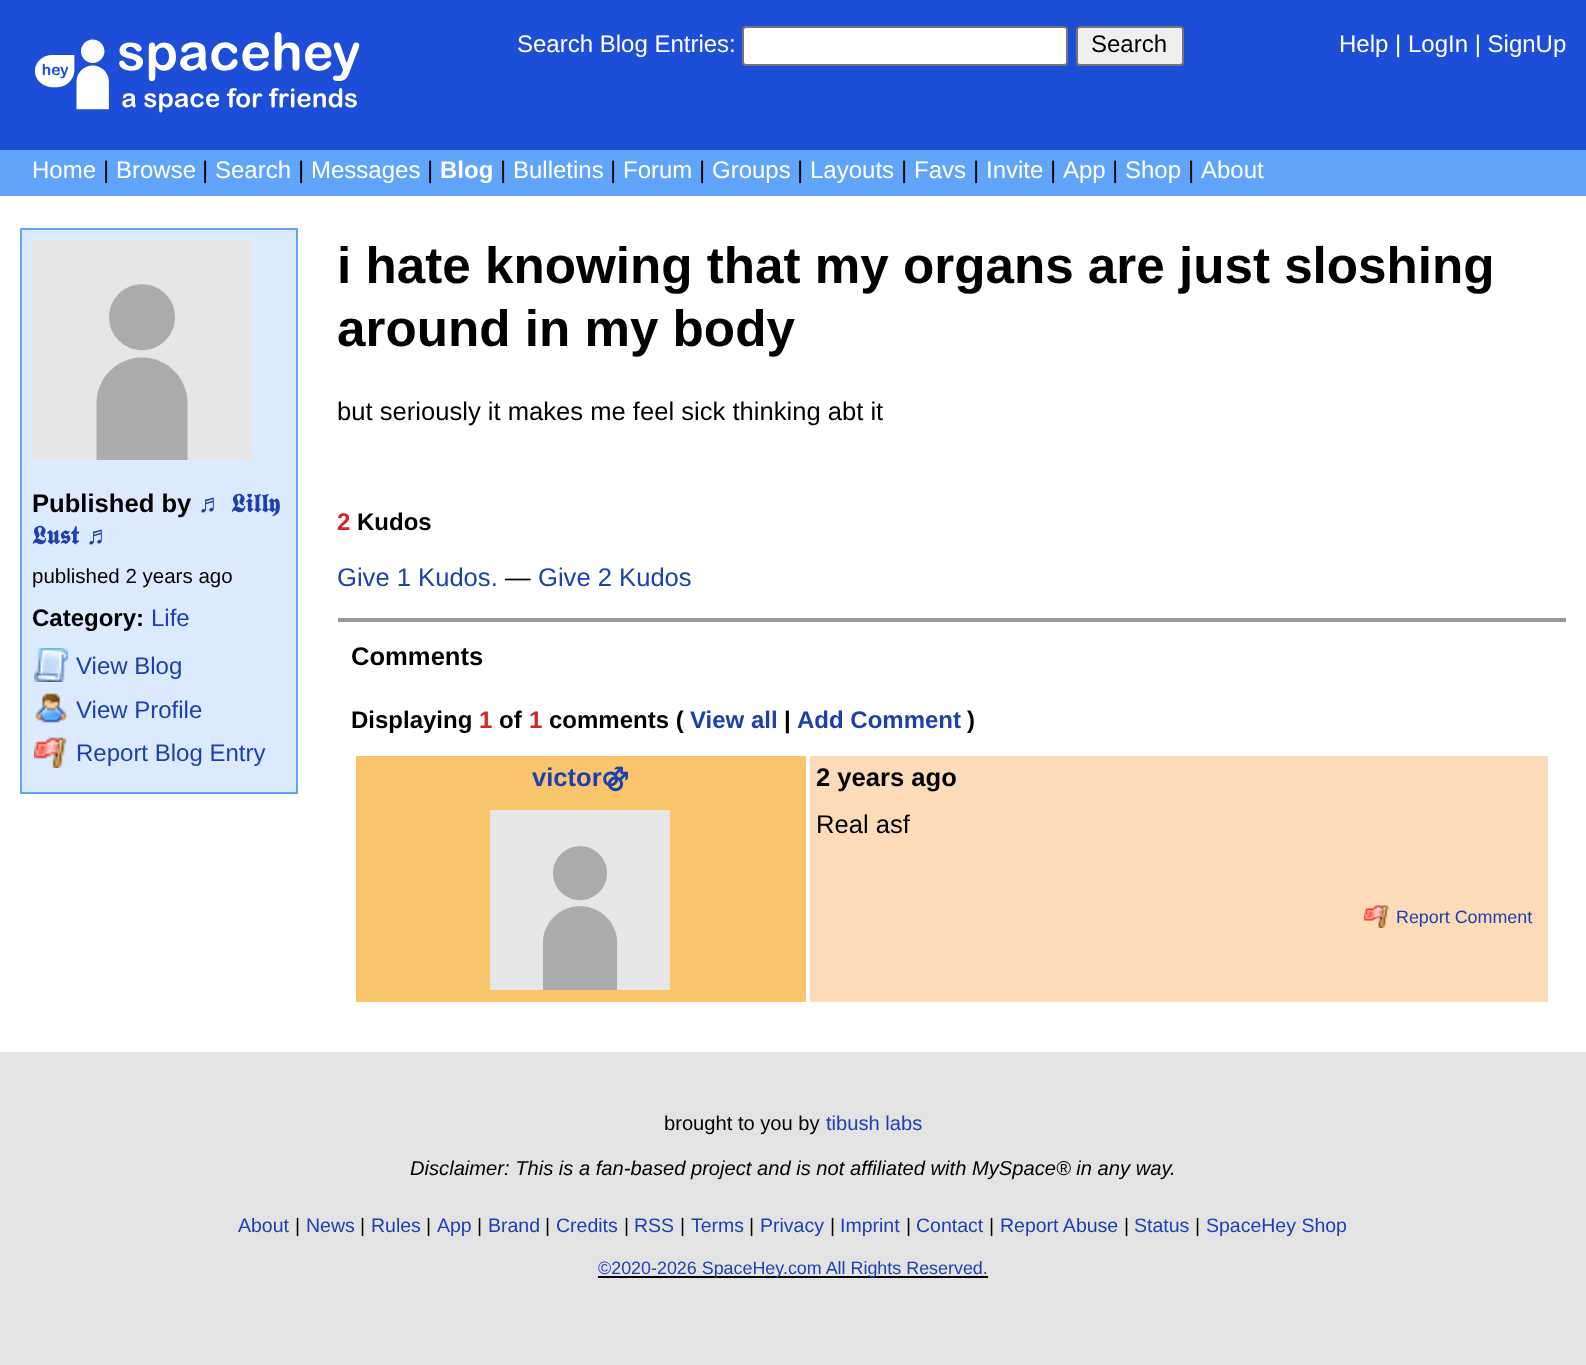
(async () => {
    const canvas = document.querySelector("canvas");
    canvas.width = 1586;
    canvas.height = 1365;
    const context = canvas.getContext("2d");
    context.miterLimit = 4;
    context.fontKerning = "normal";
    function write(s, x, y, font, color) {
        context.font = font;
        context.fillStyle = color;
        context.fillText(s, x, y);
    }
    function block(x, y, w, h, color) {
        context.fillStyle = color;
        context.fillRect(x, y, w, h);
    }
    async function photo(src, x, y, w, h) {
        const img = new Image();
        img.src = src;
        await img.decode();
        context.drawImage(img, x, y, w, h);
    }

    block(0, 0, 1586, 1365, "rgb(227, 227, 227)");
    block(0, 0, 1586, 150, "rgb(29, 78, 216)");
    await photo("media/1.png", 34, 32, 326, 81);
    write("Search Blog Entries:", 517, 52, "24px Liberation Sans", "rgb(255, 255, 255)");
    context.beginPath();
    context.roundRect(743, 27, 324, 38, 3);
    context.fill();
    context.strokeStyle = "rgb(118, 118, 118)";
    context.lineWidth = 2;
    context.stroke();
    context.fillStyle = "rgb(239, 239, 239)";
    context.beginPath();
    context.roundRect(1077, 27, 106, 38, 3);
    context.fill();
    context.stroke();
    write("Search", 1091, 52, "24px Liberation Sans", "rgb(0, 0, 0)");
    write("Help | LogIn | SignUp", 1339, 52, "24px Liberation Sans", "rgb(255, 255, 255)");
    block(0, 150, 1586, 46, "rgb(96, 165, 250)");
    write("Home", 32, 178, "24px Liberation Sans", "rgb(255, 255, 255)");
    write("|", 103, 178, "24px Liberation Sans", "rgb(0, 0, 0)");
    write("Browse", 116, 178, "24px Liberation Sans", "rgb(255, 255, 255)");
    write("|", 202, 178, "24px Liberation Sans", "rgb(0, 0, 0)");
    write("Search", 215, 178, "24px Liberation Sans", "rgb(255, 255, 255)");
    write("|", 298, 178, "24px Liberation Sans", "rgb(0, 0, 0)");
    write("Messages", 311, 178, "24px Liberation Sans", "rgb(255, 255, 255)");
    write("|", 427, 178, "24px Liberation Sans", "rgb(0, 0, 0)");
    write("Blog", 440, 178, "bold 24px Liberation Sans", "rgb(255, 255, 255)");
    write("|", 500, 178, "24px Liberation Sans", "rgb(0, 0, 0)");
    write("Bulletins", 513, 178, "24px Liberation Sans", "rgb(255, 255, 255)");
    write("|", 610, 178, "24px Liberation Sans", "rgb(0, 0, 0)");
    write("Forum", 623, 178, "24px Liberation Sans", "rgb(255, 255, 255)");
    write("|", 699, 178, "24px Liberation Sans", "rgb(0, 0, 0)");
    write("Groups", 712, 178, "24px Liberation Sans", "rgb(255, 255, 255)");
    write("|", 797, 178, "24px Liberation Sans", "rgb(0, 0, 0)");
    write("Layouts", 810, 178, "24px Liberation Sans", "rgb(255, 255, 255)");
    write("|", 901, 178, "24px Liberation Sans", "rgb(0, 0, 0)");
    write("Favs", 914, 178, "24px Liberation Sans", "rgb(255, 255, 255)");
    write("|", 973, 178, "24px Liberation Sans", "rgb(0, 0, 0)");
    write("Invite", 986, 178, "24px Liberation Sans", "rgb(255, 255, 255)");
    write("|", 1050, 178, "24px Liberation Sans", "rgb(0, 0, 0)");
    write("App", 1063, 178, "24px Liberation Sans", "rgb(255, 255, 255)");
    write("|", 1112, 178, "24px Liberation Sans", "rgb(0, 0, 0)");
    write("Shop", 1125, 178, "24px Liberation Sans", "rgb(255, 255, 255)");
    write("|", 1188, 178, "24px Liberation Sans", "rgb(0, 0, 0)");
    write("About", 1201, 178, "24px Liberation Sans", "rgb(255, 255, 255)");
    block(0, 196, 1586, 856, "rgb(255, 255, 255)");
    context.fillStyle = "rgb(219, 234, 254)";
    context.beginPath();
    context.rect(21, 229, 276, 564);
    context.fill();
    context.strokeStyle = "rgb(96, 165, 250)";
    context.stroke();
    await photo("media/2.png", 32, 240, 220, 220);
    write("Published by", 32, 512, "bold 25.6px Liberation Sans", "rgb(0, 0, 0)");
    write("♬", 198, 512, "bold 25.6px Liberation Sans", "rgb(30, 64, 175)");
    write("𝕷𝖎𝖑𝖑𝖞", 231, 512, "bold 25.6px FreeSerif", "rgb(30, 64, 175)");
    write("𝕷𝖚𝖘𝖙", 32, 544, "bold 25.6px FreeSerif", "rgb(30, 64, 175)");
    write("♬", 86, 544, "bold 25.6px Liberation Sans", "rgb(30, 64, 175)");
    write("published 2 years ago", 32, 583, "20.5px Liberation Sans", "rgb(0, 0, 0)");
    write("Category:", 32, 626, "bold 24px Liberation Sans", "rgb(0, 0, 0)");
    write("Life", 151, 626, "24px Liberation Sans", "rgb(30, 64, 175)");
    await photo("media/3.png", 34, 648, 34, 34);
    write("View Blog", 76, 674, "24px Liberation Sans", "rgb(30, 64, 175)");
    await photo("media/4.png", 35, 693, 32, 30);
    write("View Profile", 76, 718, "24px Liberation Sans", "rgb(30, 64, 175)");
    await photo("media/5.png", 34, 737, 33, 31);
    write("Report Blog Entry", 76, 761, "24px Liberation Sans", "rgb(30, 64, 175)");
    write("i hate knowing that my organs are just sloshing", 337, 283, "bold 51.2px Liberation Sans", "rgb(0, 0, 0)");
    write("around in my body", 337, 346, "bold 51.2px Liberation Sans", "rgb(0, 0, 0)");
    write("but seriously it makes me feel sick thinking abt it", 337, 420, "25.6px Liberation Sans", "rgb(0, 0, 0)");
    write("2", 337, 530, "bold 24px Liberation Sans", "rgb(211, 38, 38)");
    write("Kudos", 357, 530, "bold 24px Liberation Sans", "rgb(0, 0, 0)");
    write("Give 1 Kudos.", 337, 586, "25.6px Liberation Sans", "rgb(30, 64, 175)");
    write("—", 505, 586, "25.6px Liberation Sans", "rgb(0, 0, 0)");
    write("Give 2 Kudos", 538, 586, "25.6px Liberation Sans", "rgb(30, 64, 175)");
    block(338, 618, 1228, 4, "rgb(153, 153, 153)");
    write("Comments", 351, 665, "bold 25.6px Liberation Sans", "rgb(0, 0, 0)");
    write("Displaying", 351, 728, "bold 24px Liberation Sans", "rgb(0, 0, 0)");
    write("1", 479, 728, "bold 24px Liberation Sans", "rgb(211, 38, 38)");
    write("of", 499, 728, "bold 24px Liberation Sans", "rgb(0, 0, 0)");
    write("1", 529, 728, "bold 24px Liberation Sans", "rgb(211, 38, 38)");
    write("comments (", 549, 728, "bold 24px Liberation Sans", "rgb(0, 0, 0)");
    write("View all", 690, 728, "bold 24px Liberation Sans", "rgb(30, 64, 175)");
    write("|", 784, 728, "bold 24px Liberation Sans", "rgb(0, 0, 0)");
    write("Add Comment", 797, 728, "bold 24px Liberation Sans", "rgb(30, 64, 175)");
    write(")", 967, 728, "bold 24px Liberation Sans", "rgb(0, 0, 0)");
    block(356, 756, 450, 246, "rgb(249, 197, 108)");
    write("victor", 532, 786, "bold 25.6px Liberation Sans", "rgb(30, 64, 175)");
    write("⚣", 601, 786, "bold 25.6px DejaVu Sans", "rgb(30, 64, 175)");
    await photo("media/6.png", 490, 810, 180, 180);
    block(810, 756, 738, 246, "rgb(252, 219, 184)");
    write("2 years ago", 816, 786, "bold 25.6px Liberation Sans", "rgb(0, 0, 0)");
    write("Real asf", 816, 833, "25.6px Liberation Sans", "rgb(0, 0, 0)");
    await photo("media/7.png", 1364, 905, 25, 23);
    write("Report Comment", 1396, 923, "17.9px Liberation Sans", "rgb(30, 64, 175)");
    write("brought to you by", 664, 1130, "20.15px Liberation Sans", "rgb(0, 0, 0)");
    write("tibush labs", 826, 1130, "20.15px Liberation Sans", "rgb(30, 64, 175)");
    write("Disclaimer: This is a fan-based project and is not affiliated with MySpace® in any way.", 410, 1175, "italic 20.15px Liberation Sans", "rgb(0, 0, 0)");
    write("About", 238, 1232, "19.5px Liberation Sans", "rgb(30, 64, 175)");
    write("|", 295, 1232, "19.5px Liberation Sans", "rgb(0, 0, 0)");
    write("News", 306, 1232, "19.5px Liberation Sans", "rgb(30, 64, 175)");
    write("|", 360, 1232, "19.5px Liberation Sans", "rgb(0, 0, 0)");
    write("Rules", 371, 1232, "19.5px Liberation Sans", "rgb(30, 64, 175)");
    write("|", 426, 1232, "19.5px Liberation Sans", "rgb(0, 0, 0)");
    write("App", 437, 1232, "19.5px Liberation Sans", "rgb(30, 64, 175)");
    write("|", 477, 1232, "19.5px Liberation Sans", "rgb(0, 0, 0)");
    write("Brand", 488, 1232, "19.5px Liberation Sans", "rgb(30, 64, 175)");
    write("|", 545, 1232, "19.5px Liberation Sans", "rgb(0, 0, 0)");
    write("Credits", 556, 1232, "19.5px Liberation Sans", "rgb(30, 64, 175)");
    write("|", 624, 1232, "19.5px Liberation Sans", "rgb(0, 0, 0)");
    write("RSS", 634, 1232, "19.5px Liberation Sans", "rgb(30, 64, 175)");
    write("|", 680, 1232, "19.5px Liberation Sans", "rgb(0, 0, 0)");
    write("Terms", 691, 1232, "19.5px Liberation Sans", "rgb(30, 64, 175)");
    write("|", 749, 1232, "19.5px Liberation Sans", "rgb(0, 0, 0)");
    write("Privacy", 760, 1232, "19.5px Liberation Sans", "rgb(30, 64, 175)");
    write("|", 830, 1232, "19.5px Liberation Sans", "rgb(0, 0, 0)");
    write("Imprint", 840, 1232, "19.5px Liberation Sans", "rgb(30, 64, 175)");
    write("|", 906, 1232, "19.5px Liberation Sans", "rgb(0, 0, 0)");
    write("Contact", 916, 1232, "19.5px Liberation Sans", "rgb(30, 64, 175)");
    write("|", 989, 1232, "19.5px Liberation Sans", "rgb(0, 0, 0)");
    write("Report Abuse", 1000, 1232, "19.5px Liberation Sans", "rgb(30, 64, 175)");
    write("|", 1124, 1232, "19.5px Liberation Sans", "rgb(0, 0, 0)");
    write("Status", 1134, 1232, "19.5px Liberation Sans", "rgb(30, 64, 175)");
    write("|", 1195, 1232, "19.5px Liberation Sans", "rgb(0, 0, 0)");
    write("SpaceHey Shop", 1206, 1232, "19.5px Liberation Sans", "rgb(30, 64, 175)");
    block(598, 1276, 390, 2, "rgb(0, 0, 0)");
    write("©2020-2026 SpaceHey.com All Rights Reserved.", 598, 1274, "17.9px Liberation Sans", "rgb(30, 64, 175)");
})();
